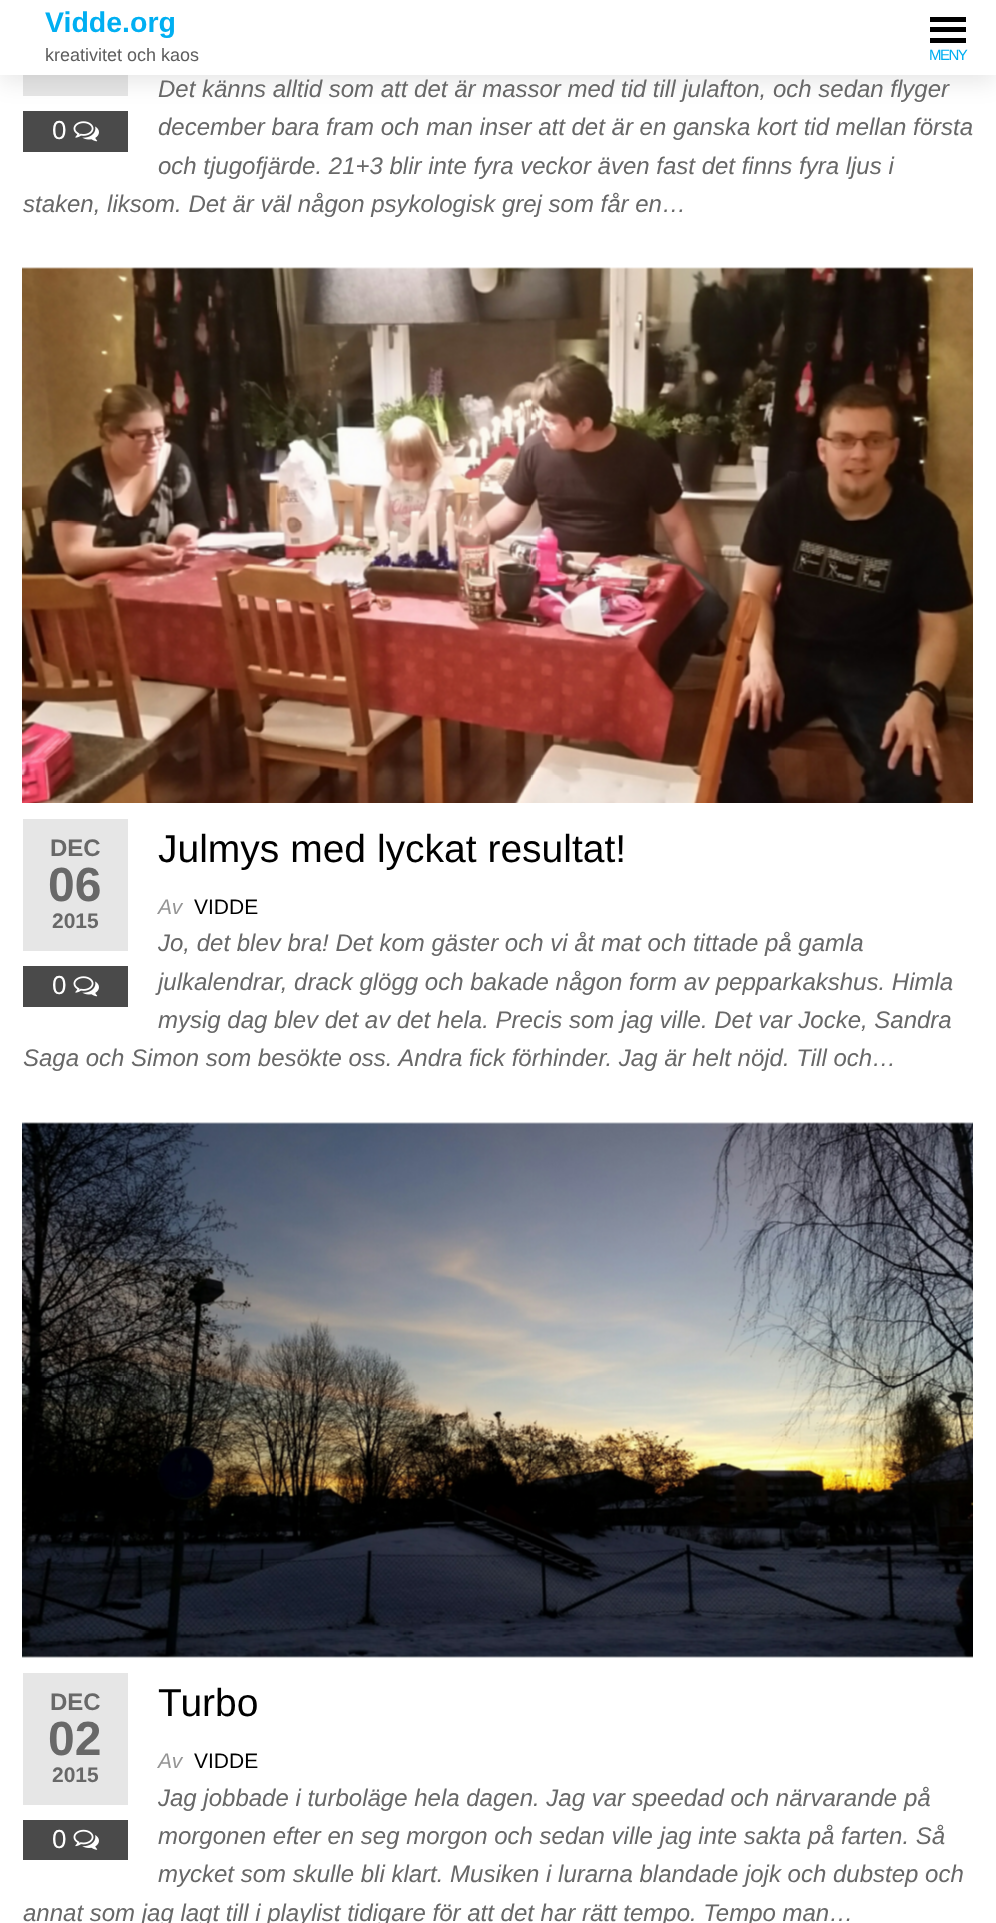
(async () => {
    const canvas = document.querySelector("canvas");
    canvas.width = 996;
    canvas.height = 1923;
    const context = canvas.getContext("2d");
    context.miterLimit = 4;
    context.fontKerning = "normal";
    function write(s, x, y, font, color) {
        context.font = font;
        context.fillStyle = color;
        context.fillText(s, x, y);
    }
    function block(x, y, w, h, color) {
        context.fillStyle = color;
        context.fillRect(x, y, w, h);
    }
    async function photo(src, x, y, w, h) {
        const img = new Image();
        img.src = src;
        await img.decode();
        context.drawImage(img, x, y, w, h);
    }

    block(0, 0, 996, 1923, "rgb(255, 255, 255)");
    block(23, 75, 105, 21, "rgb(230, 230, 230)");
    block(23, 111, 105, 41, "rgb(74, 74, 74)");
    context.fillStyle = "rgba(0, 0, 0, 0.1)";
    context.filter = "blur(12px)";
    context.beginPath();
    context.rect(0, 6, 996, 75);
    context.fill();
    context.filter = "none";
    block(0, 0, 996, 75, "rgb(255, 255, 255)");
    write("Vidde.org", 45, 32, "bold 28.5px Liberation Sans", "rgb(0, 175, 242)");
    write("kreativitet och kaos", 45, 61, "18px Liberation Sans", "rgb(94, 94, 94)");
    block(930, 17, 36, 5, "rgb(0, 0, 0)");
    block(930, 27, 36, 5, "rgb(0, 0, 0)");
    block(930, 38, 36, 5, "rgb(0, 0, 0)");
    context.letterSpacing = "-1.5px";
    write("MENY", 929, 60, "15px Liberation Sans", "rgb(0, 175, 242)");
    context.letterSpacing = "0px";
    write("Det känns alltid som att det är massor med tid till julafton, och sedan flyger", 158, 97, "italic 24px Liberation Sans", "rgb(104, 104, 104)");
    write("december bara fram och man inser att det är en ganska kort tid mellan första", 158, 135, "italic 24px Liberation Sans", "rgb(104, 104, 104)");
    write("och tjugofjärde. 21+3 blir inte fyra veckor även fast det finns fyra ljus i", 158, 174, "italic 24px Liberation Sans", "rgb(104, 104, 104)");
    write("staken, liksom. Det är väl någon psykologisk grej som får en…", 23, 212, "italic 24px Liberation Sans", "rgb(104, 104, 104)");
    write("0", 52, 139, "26px Liberation Sans", "rgb(255, 255, 255)");
    await photo("media/1.png", 73, 121, 26, 21);
    await photo("media/2.png", 22, 267, 951, 536);
    block(23, 819, 105, 132, "rgb(230, 230, 230)");
    write("DEC", 50, 856, "bold 24px Liberation Sans", "rgb(104, 104, 104)");
    write("06", 48, 901, "bold 48px Liberation Sans", "rgb(104, 104, 104)");
    write("2015", 52, 928, "bold 21px Liberation Sans", "rgb(104, 104, 104)");
    block(23, 966, 105, 41, "rgb(74, 74, 74)");
    write("0", 52, 994, "26px Liberation Sans", "rgb(255, 255, 255)");
    await photo("media/1.png", 73, 976, 26, 21);
    write("Julmys med lyckat resultat!", 158, 862, "39px Liberation Sans", "rgb(0, 0, 0)");
    write("Av", 158, 914, "italic 21px Liberation Sans", "rgb(149, 149, 149)");
    write("VIDDE", 194, 914, "21px Liberation Sans", "rgb(0, 0, 0)");
    write("Jo, det blev bra! Det kom gäster och vi åt mat och tittade på gamla", 158, 951, "italic 24px Liberation Sans", "rgb(104, 104, 104)");
    write("julkalendrar, drack glögg och bakade någon form av pepparkakshus. Himla", 158, 990, "italic 24px Liberation Sans", "rgb(104, 104, 104)");
    write("mysig dag blev det av det hela. Precis som jag ville. Det var Jocke, Sandra", 158, 1028, "italic 24px Liberation Sans", "rgb(104, 104, 104)");
    write("Saga och Simon som besökte oss. Andra fick förhinder. Jag är helt nöjd. Till och…", 23, 1066, "italic 24px Liberation Sans", "rgb(104, 104, 104)");
    await photo("media/3.png", 22, 1122, 951, 536);
    block(23, 1673, 105, 132, "rgb(230, 230, 230)");
    write("DEC", 50, 1710, "bold 24px Liberation Sans", "rgb(104, 104, 104)");
    write("02", 48, 1755, "bold 48px Liberation Sans", "rgb(104, 104, 104)");
    write("2015", 52, 1782, "bold 21px Liberation Sans", "rgb(104, 104, 104)");
    block(23, 1820, 105, 40, "rgb(74, 74, 74)");
    write("0", 52, 1848, "26px Liberation Sans", "rgb(255, 255, 255)");
    await photo("media/4.png", 73, 1829, 26, 21);
    write("Turbo", 158, 1716, "39px Liberation Sans", "rgb(0, 0, 0)");
    write("Av", 158, 1768, "italic 21px Liberation Sans", "rgb(149, 149, 149)");
    write("VIDDE", 194, 1768, "21px Liberation Sans", "rgb(0, 0, 0)");
    write("Jag jobbade i turboläge hela dagen. Jag var speedad och närvarande på", 158, 1806, "italic 24px Liberation Sans", "rgb(104, 104, 104)");
    write("morgonen efter en seg morgon och sedan ville jag inte sakta på farten. Så", 158, 1844, "italic 24px Liberation Sans", "rgb(104, 104, 104)");
    write("mycket som skulle bli klart. Musiken i lurarna blandade jojk och dubstep och", 158, 1882, "italic 24px Liberation Sans", "rgb(104, 104, 104)");
    write("annat som jag lagt till i playlist tidigare för att det har rätt tempo. Tempo man…", 23, 1921, "italic 24px Liberation Sans", "rgb(104, 104, 104)");
})();
